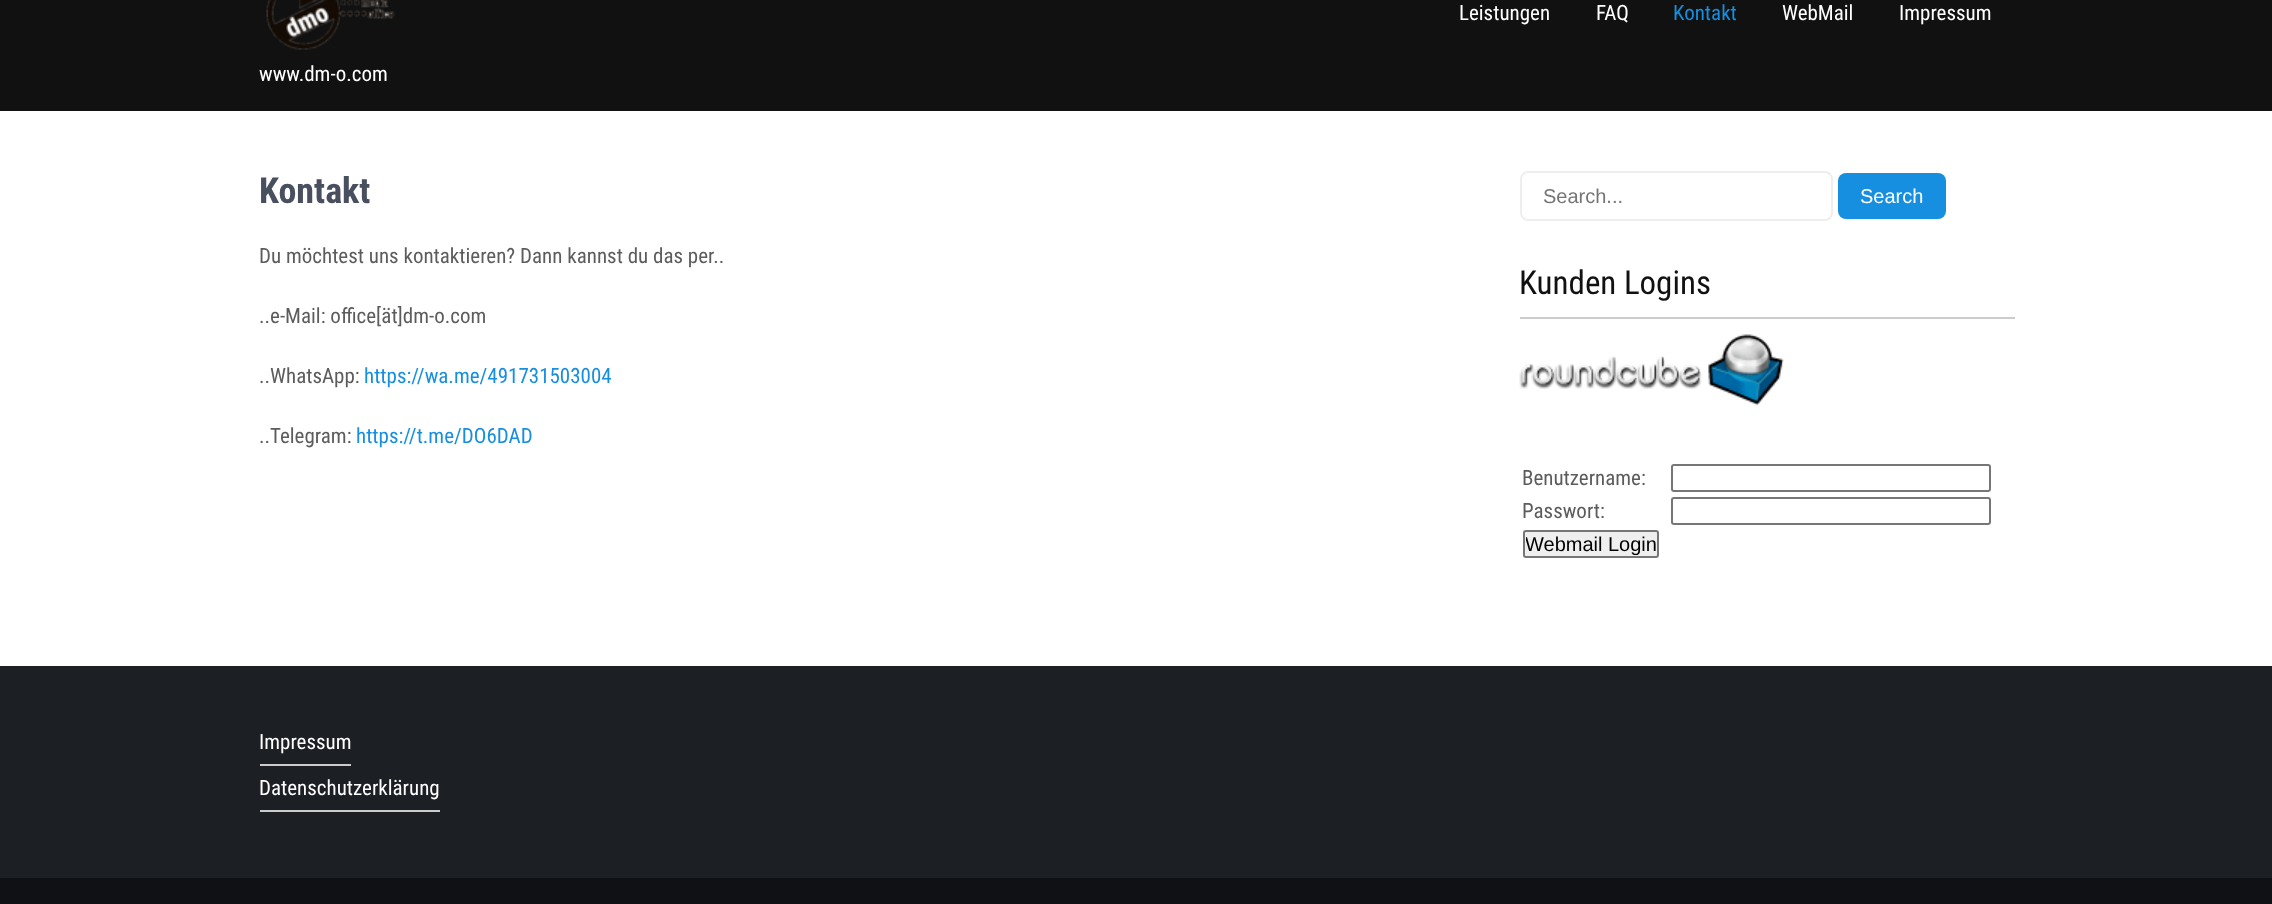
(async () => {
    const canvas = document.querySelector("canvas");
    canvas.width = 2272;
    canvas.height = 904;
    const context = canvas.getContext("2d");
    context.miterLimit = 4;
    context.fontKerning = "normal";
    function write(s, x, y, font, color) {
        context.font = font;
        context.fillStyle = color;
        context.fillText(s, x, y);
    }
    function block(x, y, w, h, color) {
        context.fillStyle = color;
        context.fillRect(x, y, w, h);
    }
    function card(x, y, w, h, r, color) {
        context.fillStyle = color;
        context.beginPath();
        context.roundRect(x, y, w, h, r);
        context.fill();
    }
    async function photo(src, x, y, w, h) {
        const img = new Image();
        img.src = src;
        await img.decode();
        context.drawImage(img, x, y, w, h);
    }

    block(0, 0, 2272, 904, "rgb(255, 255, 255)");
    block(0, 0, 2272, 111, "rgb(17, 17, 17)");
    write("Leistungen", 1459, 20, "21px Roboto Condensed", "rgb(255, 255, 255)");
    write("FAQ", 1596, 20, "21px Roboto Condensed", "rgb(255, 255, 255)");
    write("Kontakt", 1673, 20, "21px Roboto Condensed", "rgb(22, 143, 224)");
    write("WebMail", 1782, 20, "21px Roboto Condensed", "rgb(255, 255, 255)");
    write("Impressum", 1899, 20, "21px Roboto Condensed", "rgb(255, 255, 255)");
    await photo("media/1.png", 266, 0, 129, 50);
    write("www.dm-o.com", 259, 81, "21px Roboto Condensed", "rgb(255, 255, 255)");
    write("Kontakt", 259, 203, "bold 36px Roboto Condensed", "rgb(72, 79, 94)");
    write("Du möchtest uns kontaktieren? Dann kannst du das per..", 259, 263, "21px Roboto Condensed", "rgb(92, 92, 92)");
    write("..e-Mail: office[ät]dm-o.com", 259, 323, "21px Roboto Condensed", "rgb(92, 92, 92)");
    write("..WhatsApp:", 259, 383, "21px Roboto Condensed", "rgb(92, 92, 92)");
    write("https://wa.me/491731503004", 364, 383, "21px Roboto Condensed", "rgb(22, 143, 224)");
    write("..Telegram:", 259, 443, "21px Roboto Condensed", "rgb(92, 92, 92)");
    write("https://t.me/DO6DAD", 356, 443, "21px Roboto Condensed", "rgb(22, 143, 224)");
    context.beginPath();
    context.roundRect(1521, 172, 311, 48, 7);
    context.strokeStyle = "rgb(238, 238, 238)";
    context.lineWidth = 2;
    context.stroke();
    write("Search...", 1543, 203, "20px Liberation Sans", "rgb(117, 117, 117)");
    card(1838, 173, 108, 46, 8, "rgb(22, 143, 224)");
    write("Search", 1860, 203, "20px Liberation Sans", "rgb(255, 255, 255)");
    block(1520, 317, 495, 2, "rgb(204, 204, 204)");
    write("Kunden Logins", 1519, 294, "33px Roboto Condensed", "rgb(17, 17, 17)");
    await photo("media/2.png", 1519, 334, 265, 72);
    write("Benutzername:", 1522, 485, "21px Roboto Condensed", "rgb(92, 92, 92)");
    context.beginPath();
    context.roundRect(1672, 465, 318, 26, 2);
    context.strokeStyle = "rgb(118, 118, 118)";
    context.stroke();
    write("Passwort:", 1522, 518, "21px Roboto Condensed", "rgb(92, 92, 92)");
    context.beginPath();
    context.roundRect(1672, 498, 318, 26, 2);
    context.stroke();
    context.fillStyle = "rgb(239, 239, 239)";
    context.beginPath();
    context.roundRect(1524, 531, 134, 26, 2);
    context.fill();
    context.stroke();
    context.save();
    context.beginPath();
    context.rect(1526, 533, 130, 22);
    context.clip();
    write("Webmail Login", 1525, 551, "20px Liberation Sans", "rgb(0, 0, 0)");
    context.restore();
    block(0, 666, 2272, 212, "rgb(28, 31, 36)");
    block(260, 764, 91, 2, "rgb(204, 204, 204)");
    write("Impressum", 259, 749, "21px Roboto Condensed", "rgb(255, 255, 255)");
    block(260, 810, 180, 2, "rgb(204, 204, 204)");
    write("Datenschutzerklärung", 259, 795, "21px Roboto Condensed", "rgb(255, 255, 255)");
    block(0, 878, 2272, 26, "rgb(15, 17, 20)");
})();
